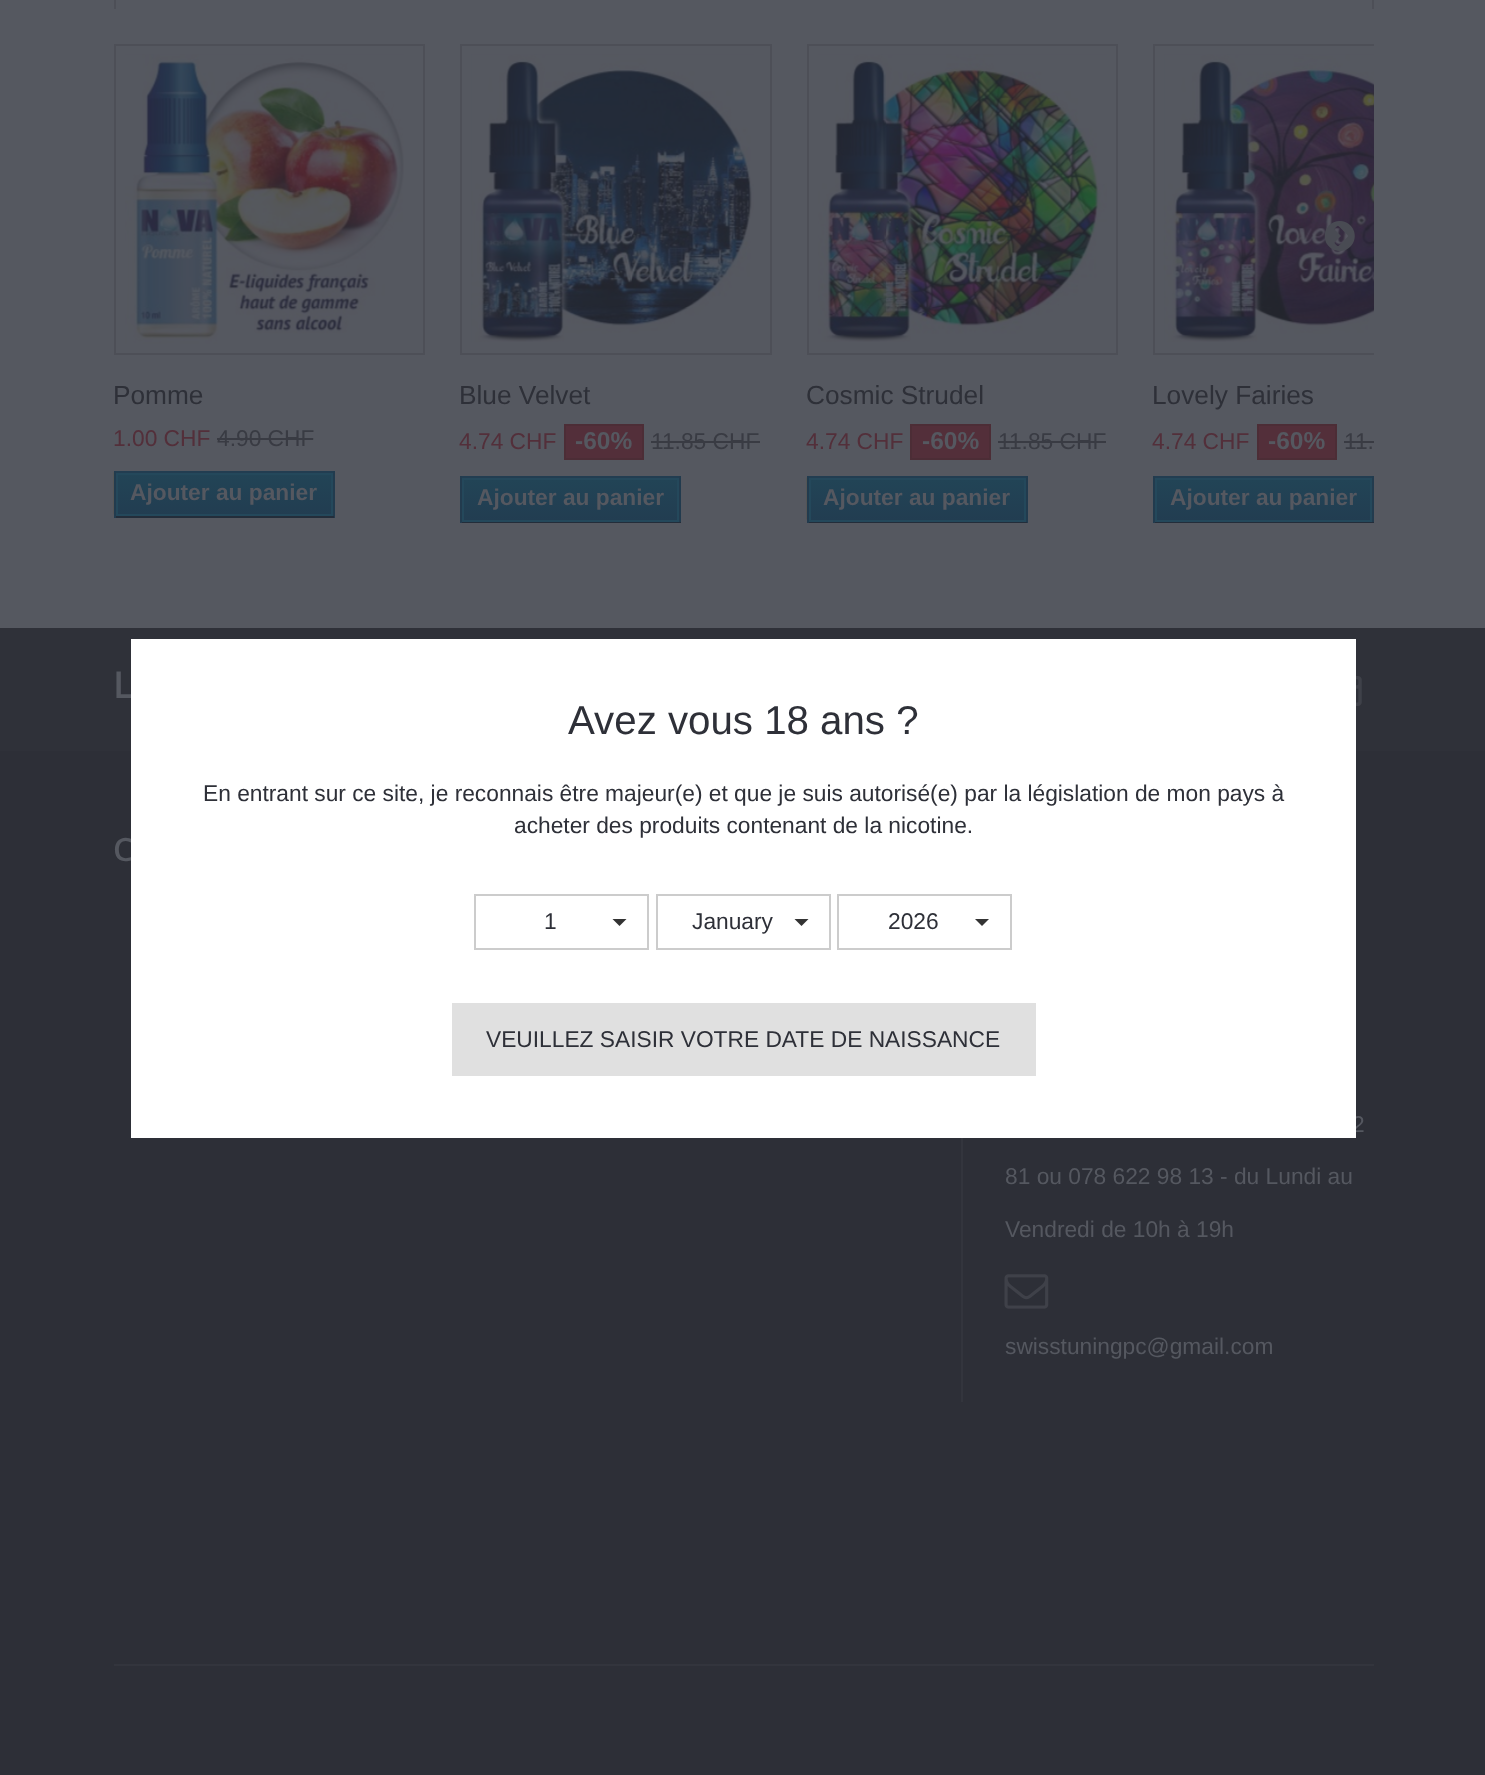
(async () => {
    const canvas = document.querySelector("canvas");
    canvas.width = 1485;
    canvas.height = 1775;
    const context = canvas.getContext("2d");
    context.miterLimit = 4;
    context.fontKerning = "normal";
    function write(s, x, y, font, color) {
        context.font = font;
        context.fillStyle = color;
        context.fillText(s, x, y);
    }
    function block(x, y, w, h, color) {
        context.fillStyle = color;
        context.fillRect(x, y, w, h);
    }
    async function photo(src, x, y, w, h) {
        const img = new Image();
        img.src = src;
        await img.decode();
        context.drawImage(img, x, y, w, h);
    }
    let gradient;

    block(0, 0, 1485, 1775, "rgb(85, 88, 96)");
    block(1372, 0, 2, 9, "rgb(77, 79, 87)");
    block(114, 0, 2, 9, "rgb(77, 79, 87)");
    context.save();
    context.beginPath();
    context.rect(114, 44, 1260, 479);
    context.clip();
    context.strokeStyle = "rgb(77, 79, 87)";
    context.lineWidth = 2;
    context.strokeRect(1154, 45, 310, 309);
    context.restore();
    await photo("media/7.png", 1163, 54, 211, 288);
    await photo("media/1.png", 1324, 221, 31, 30);
    context.strokeStyle = "rgb(77, 79, 87)";
    context.lineWidth = 2;
    context.strokeRect(115, 45, 309, 309);
    await photo("media/2.png", 125, 54, 279, 290);
    write("Pomme", 113, 404, "26.25px Liberation Sans", "rgb(46, 48, 56)");
    write("1.00 CHF", 113, 446, "22.75px Liberation Sans", "rgb(83, 47, 58)");
    write("4.90 CHF", 217, 446, "22.75px Liberation Sans", "rgb(57, 59, 67)");
    block(217, 438, 96, 2, "rgb(57, 59, 67)");
    await photo("media/3.png", 113, 471, 1, 44);
    block(114, 471, 220, 2, "rgb(34, 61, 81)");
    block(333, 471, 2, 47, "rgb(34, 59, 78)");
    block(114, 516, 220, 2, "rgb(35, 45, 58)");
    block(114, 471, 2, 47, "rgb(34, 59, 78)");
    gradient = context.createLinearGradient(224, 474, 224, 515);
    gradient.addColorStop(0, "rgb(34, 68, 86)");
    gradient.addColorStop(1, "rgb(34, 61, 81)");
    context.fillStyle = gradient;
    context.fillRect(118, 475, 213, 39);
    context.strokeStyle = "rgb(36, 72, 91)";
    context.strokeRect(117, 474, 215, 41);
    write("Ajouter au panier", 130, 500, "bold 22.75px Liberation Sans", "rgb(85, 88, 96)");
    context.strokeStyle = "rgb(77, 79, 87)";
    context.strokeRect(461, 45, 310, 309);
    await photo("media/4.png", 471, 54, 283, 288);
    write("Blue Velvet", 459, 404, "26.25px Liberation Sans", "rgb(46, 48, 56)");
    write("4.74 CHF", 459, 449, "22.75px Liberation Sans", "rgb(83, 47, 58)");
    context.beginPath();
    context.rect(565, 425, 78, 34);
    context.fill();
    context.strokeStyle = "rgb(76, 45, 54)";
    context.stroke();
    write("-60%", 575, 449, "bold 24.5px Liberation Sans", "rgb(85, 88, 96)");
    write("11.85 CHF", 651, 449, "22.75px Liberation Sans", "rgb(57, 59, 67)");
    block(651, 441, 109, 2, "rgb(57, 59, 67)");
    block(460, 476, 221, 2, "rgb(34, 61, 81)");
    block(679, 476, 2, 47, "rgb(34, 59, 78)");
    block(460, 522, 221, 1, "rgb(35, 45, 58)");
    block(460, 476, 2, 47, "rgb(34, 59, 78)");
    gradient = context.createLinearGradient(571, 480, 571, 520);
    gradient.addColorStop(0, "rgb(34, 68, 86)");
    gradient.addColorStop(1, "rgb(34, 61, 81)");
    context.fillStyle = gradient;
    context.fillRect(464, 480, 213, 40);
    context.strokeStyle = "rgb(36, 72, 91)";
    context.strokeRect(463, 479, 215, 42);
    write("Ajouter au panier", 477, 505, "bold 22.75px Liberation Sans", "rgb(85, 88, 96)");
    context.strokeStyle = "rgb(77, 79, 87)";
    context.strokeRect(808, 45, 309, 309);
    await photo("media/5.png", 818, 54, 289, 288);
    write("Cosmic Strudel", 806, 404, "26.25px Liberation Sans", "rgb(46, 48, 56)");
    write("4.74 CHF", 806, 449, "22.75px Liberation Sans", "rgb(83, 47, 58)");
    context.beginPath();
    context.rect(911, 425, 79, 34);
    context.fill();
    context.strokeStyle = "rgb(76, 45, 54)";
    context.stroke();
    write("-60%", 922, 449, "bold 24.5px Liberation Sans", "rgb(85, 88, 96)");
    write("11.85 CHF", 998, 449, "22.75px Liberation Sans", "rgb(57, 59, 67)");
    block(998, 441, 108, 2, "rgb(57, 59, 67)");
    await photo("media/6.png", 806, 477, 1, 43);
    block(807, 476, 220, 2, "rgb(34, 61, 81)");
    block(1026, 476, 2, 47, "rgb(34, 59, 78)");
    block(807, 522, 220, 1, "rgb(35, 45, 58)");
    block(807, 476, 2, 47, "rgb(34, 59, 78)");
    gradient = context.createLinearGradient(917, 480, 917, 520);
    gradient.addColorStop(0, "rgb(34, 68, 86)");
    gradient.addColorStop(1, "rgb(34, 61, 81)");
    context.fillStyle = gradient;
    context.fillRect(811, 480, 213, 40);
    context.strokeStyle = "rgb(36, 72, 91)";
    context.strokeRect(810, 479, 215, 42);
    write("Ajouter au panier", 823, 505, "bold 22.75px Liberation Sans", "rgb(85, 88, 96)");
    write("Lovely Fairies", 1152, 404, "26.25px Liberation Sans", "rgb(46, 48, 56)");
    write("4.74 CHF", 1152, 449, "22.75px Liberation Sans", "rgb(83, 47, 58)");
    context.beginPath();
    context.rect(1258, 425, 78, 34);
    context.fill();
    context.strokeStyle = "rgb(76, 45, 54)";
    context.stroke();
    write("-60%", 1268, 449, "bold 24.5px Liberation Sans", "rgb(85, 88, 96)");
    write("11.", 1344, 449, "22.75px Liberation Sans", "rgb(57, 59, 67)");
    block(1344, 441, 30, 2, "rgb(57, 59, 67)");
    block(1153, 476, 221, 2, "rgb(34, 61, 81)");
    block(1372, 476, 2, 47, "rgb(34, 59, 78)");
    block(1153, 522, 221, 1, "rgb(35, 45, 58)");
    block(1153, 476, 2, 47, "rgb(34, 59, 78)");
    gradient = context.createLinearGradient(1264, 480, 1264, 520);
    gradient.addColorStop(0, "rgb(34, 68, 86)");
    gradient.addColorStop(1, "rgb(34, 61, 81)");
    context.fillStyle = gradient;
    context.fillRect(1157, 480, 213, 40);
    context.strokeStyle = "rgb(36, 72, 91)";
    context.strokeRect(1156, 479, 215, 42);
    write("Ajouter au panier", 1170, 505, "bold 22.75px Liberation Sans", "rgb(85, 88, 96)");
    block(0, 751, 1485, 1024, "rgb(45, 47, 55)");
    block(0, 628, 1485, 123, "rgb(47, 49, 57)");
    write("L", 113, 698, "600 37px Open Sans", "rgb(85, 88, 96)");
    await photo("media/8.png", 1356, 676, 6, 30);
    write("C", 113, 861, "600 32px Open Sans", "rgb(85, 88, 96)");
    block(961, 1138, 2, 264, "rgb(51, 53, 61)");
    write("2", 1352, 1132, "22.75px Liberation Sans", "rgb(85, 88, 96)");
    write("81 ou 078 622 98 13 - du Lundi au", 1005, 1184, "22.75px Liberation Sans", "rgb(85, 88, 96)");
    write("Vendredi de 10h à 19h", 1005, 1237, "22.75px Liberation Sans", "rgb(85, 88, 96)");
    await photo("media/9.png", 1004, 1274, 45, 35);
    write("swisstuningpc@gmail.com", 1005, 1354, "22.75px Liberation Sans", "rgb(85, 88, 96)");
    block(114, 1664, 1260, 2, "rgb(51, 53, 61)");
    block(131, 639, 1225, 499, "rgb(255, 255, 255)");
    write("Avez vous 18 ans ?", 568, 734, "40.25px Liberation Sans", "rgb(46, 48, 56)");
    write("En entrant sur ce site, je reconnais être majeur(e) et que je suis autorisé(e) par la législation de mon pays à", 203, 801, "22.75px Liberation Sans", "rgb(46, 48, 56)");
    write("acheter des produits contenant de la nicotine.", 514, 833, "22.75px Liberation Sans", "rgb(46, 48, 56)");
    context.strokeStyle = "rgb(204, 204, 204)";
    context.strokeRect(475, 895, 173, 54);
    write("1", 544, 929, "22.75px Liberation Sans", "rgb(46, 48, 56)");
    context.fillStyle = "rgb(51, 51, 51)";
    context.beginPath();
    context.moveTo(612.5, 919);
    context.lineTo(626.5, 919);
    context.lineTo(619.5, 926);
    context.closePath();
    context.fill();
    context.strokeRect(657, 895, 173, 54);
    write("January", 692, 929, "22.75px Liberation Sans", "rgb(46, 48, 56)");
    context.fillStyle = "rgb(51, 51, 51)";
    context.beginPath();
    context.moveTo(794.5, 919);
    context.lineTo(808.5, 919);
    context.lineTo(801.5, 926);
    context.closePath();
    context.fill();
    context.strokeRect(838, 895, 173, 54);
    write("2026", 888, 929, "22.75px Liberation Sans", "rgb(46, 48, 56)");
    context.fillStyle = "rgb(51, 51, 51)";
    context.beginPath();
    context.moveTo(975, 919);
    context.lineTo(989, 919);
    context.lineTo(982, 926);
    context.closePath();
    context.fill();
    block(452, 1003, 584, 73, "rgb(224, 224, 224)");
    write("VEUILLEZ SAISIR VOTRE DATE DE NAISSANCE", 486, 1047, "22.75px Liberation Sans", "rgb(46, 48, 56)");
})();
